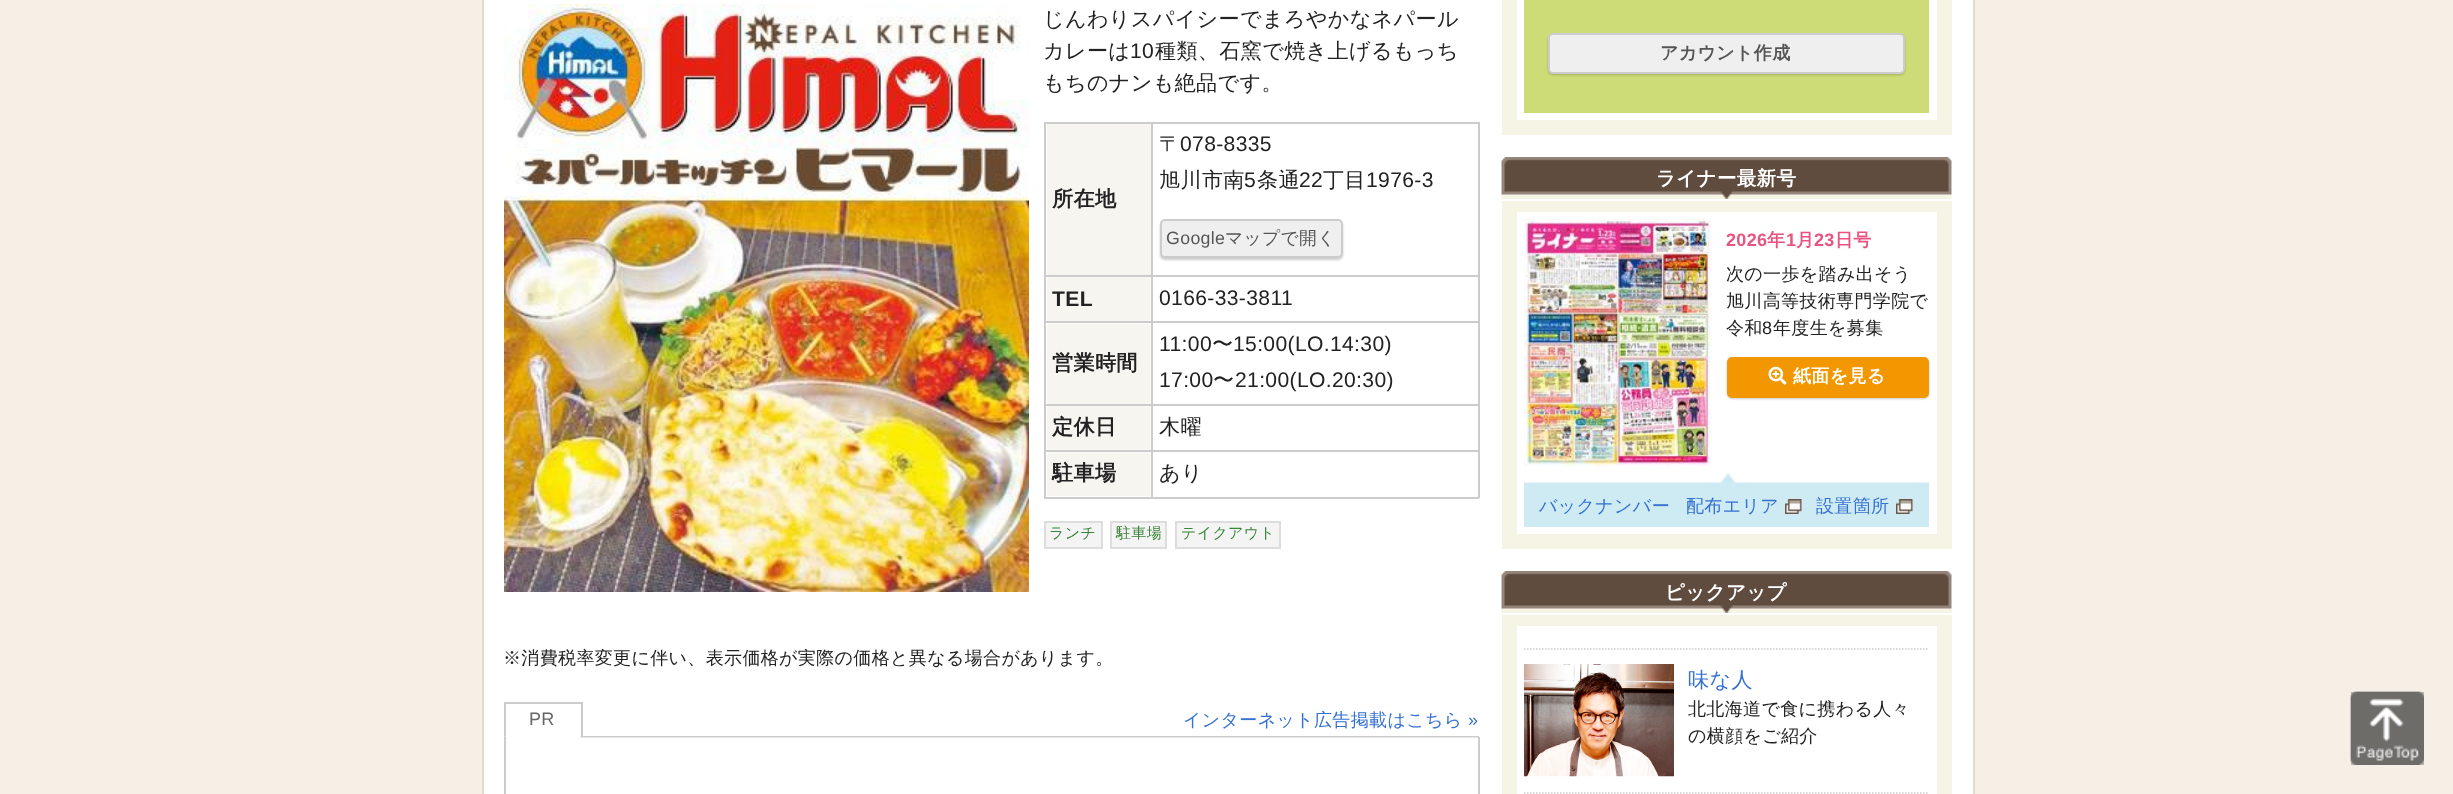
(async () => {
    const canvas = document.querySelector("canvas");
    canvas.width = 2453;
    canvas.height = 794;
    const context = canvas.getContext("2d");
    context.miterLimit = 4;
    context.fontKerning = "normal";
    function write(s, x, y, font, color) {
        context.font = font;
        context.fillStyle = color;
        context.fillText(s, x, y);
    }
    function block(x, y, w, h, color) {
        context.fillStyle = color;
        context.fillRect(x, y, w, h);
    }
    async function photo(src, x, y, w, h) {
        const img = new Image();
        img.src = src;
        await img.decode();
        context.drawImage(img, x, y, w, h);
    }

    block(0, 0, 2453, 794, "rgb(245, 239, 229)");
    block(484, 0, 1489, 794, "rgb(255, 255, 255)");
    block(1973, 0, 2, 794, "rgb(226, 219, 201)");
    block(482, 0, 2, 794, "rgb(226, 219, 201)");
    await photo("media/1.png", 504, 4, 525, 588);
    context.letterSpacing = "0.35px";
    write("じんわりスパイシーでまろやかなネパール", 1043, 26, "500 21.1px WenQuanYi Zen Hei", "rgb(34, 34, 34)");
    write("カレーは", 1043, 58, "500 21.1px WenQuanYi Zen Hei", "rgb(34, 34, 34)");
    write("10", 1130, 58, "21.1px Liberation Sans", "rgb(34, 34, 34)");
    write("種類、石窯で焼き上げるもっち", 1155, 58, "500 21.1px WenQuanYi Zen Hei", "rgb(34, 34, 34)");
    write("もちのナンも絶品です。", 1043, 90, "500 21.1px WenQuanYi Zen Hei", "rgb(34, 34, 34)");
    block(1044, 122, 435, 2, "rgb(204, 204, 204)");
    block(1478, 122, 2, 376, "rgb(204, 204, 204)");
    block(1044, 497, 435, 2, "rgb(204, 204, 204)");
    block(1044, 122, 2, 376, "rgb(204, 204, 204)");
    block(1047, 124, 104, 151, "rgb(246, 245, 240)");
    block(1151, 450, 2, 48, "rgb(204, 204, 204)");
    block(1151, 450, 328, 2, "rgb(204, 204, 204)");
    block(1151, 404, 2, 48, "rgb(204, 204, 204)");
    block(1151, 404, 328, 2, "rgb(204, 204, 204)");
    block(1151, 321, 2, 84, "rgb(204, 204, 204)");
    block(1151, 321, 328, 2, "rgb(204, 204, 204)");
    block(1151, 275, 2, 48, "rgb(204, 204, 204)");
    block(1151, 275, 328, 2, "rgb(204, 204, 204)");
    block(1151, 122, 2, 154, "rgb(204, 204, 204)");
    block(1044, 275, 108, 2, "rgb(204, 204, 204)");
    write("所在地", 1052, 206, "bold 21.1px WenQuanYi Zen Hei", "rgb(34, 34, 34)");
    write("〒", 1159, 151, "500 21.1px WenQuanYi Zen Hei", "rgb(34, 34, 34)");
    write("078-8335", 1180, 151, "21.1px Liberation Sans", "rgb(34, 34, 34)");
    write("旭川市南", 1159, 187, "500 21.1px WenQuanYi Zen Hei", "rgb(34, 34, 34)");
    write("5", 1244, 187, "21.1px Liberation Sans", "rgb(34, 34, 34)");
    write("条通", 1257, 187, "500 21.1px WenQuanYi Zen Hei", "rgb(34, 34, 34)");
    write("22", 1299, 187, "21.1px Liberation Sans", "rgb(34, 34, 34)");
    write("丁目", 1323, 187, "500 21.1px WenQuanYi Zen Hei", "rgb(34, 34, 34)");
    write("1976-3", 1366, 187, "21.1px Liberation Sans", "rgb(34, 34, 34)");
    context.fillStyle = "rgba(0, 0, 0, 0.2)";
    context.filter = "blur(1px)";
    context.beginPath();
    context.roundRect(1160, 221, 183, 39, 5);
    context.fill();
    context.filter = "none";
    context.fillStyle = "rgb(239, 239, 239)";
    context.beginPath();
    context.roundRect(1161, 220, 181, 37, 4);
    context.fill();
    context.strokeStyle = "rgb(204, 204, 204)";
    context.lineWidth = 2;
    context.stroke();
    write("Google", 1166, 244, "17.75px Liberation Sans", "rgb(85, 85, 85)");
    write("マップで開く", 1225, 244, "500 17.75px WenQuanYi Zen Hei", "rgb(85, 85, 85)");
    await photo("media/2.png", 1047, 277, 104, 44);
    block(1044, 321, 108, 2, "rgb(204, 204, 204)");
    write("TEL", 1052, 306, "bold 21.1px Liberation Sans", "rgb(34, 34, 34)");
    write("0166-33-3811", 1159, 305, "21.1px Liberation Sans", "rgb(34, 34, 34)");
    await photo("media/3.png", 1047, 323, 104, 81);
    block(1044, 404, 108, 2, "rgb(204, 204, 204)");
    write("営業時間", 1052, 370, "bold 21.1px WenQuanYi Zen Hei", "rgb(34, 34, 34)");
    write("11:00", 1159, 351, "21.1px Liberation Sans", "rgb(34, 34, 34)");
    write("〜", 1212, 351, "500 21.1px WenQuanYi Zen Hei", "rgb(34, 34, 34)");
    write("15:00(LO.14:30)", 1233, 351, "21.1px Liberation Sans", "rgb(34, 34, 34)");
    write("17:00", 1159, 387, "21.1px Liberation Sans", "rgb(34, 34, 34)");
    write("〜", 1213, 387, "500 21.1px WenQuanYi Zen Hei", "rgb(34, 34, 34)");
    write("21:00(LO.20:30)", 1235, 387, "21.1px Liberation Sans", "rgb(34, 34, 34)");
    await photo("media/4.png", 1047, 406, 104, 44);
    block(1044, 450, 108, 2, "rgb(204, 204, 204)");
    write("定休日", 1052, 434, "bold 21.1px WenQuanYi Zen Hei", "rgb(34, 34, 34)");
    write("木曜", 1159, 434, "500 21.1px WenQuanYi Zen Hei", "rgb(34, 34, 34)");
    await photo("media/5.png", 1047, 452, 104, 44);
    write("駐車場", 1052, 480, "bold 21.1px WenQuanYi Zen Hei", "rgb(34, 34, 34)");
    write("あり", 1159, 480, "500 21.1px WenQuanYi Zen Hei", "rgb(34, 34, 34)");
    context.fillStyle = "rgb(244, 244, 244)";
    context.beginPath();
    context.rect(1045, 522, 57, 26);
    context.fill();
    context.strokeStyle = "rgb(221, 221, 221)";
    context.stroke();
    write("ランチ", 1049, 538, "500 15px WenQuanYi Zen Hei", "rgb(57, 132, 57)");
    context.fillStyle = "rgb(244, 244, 244)";
    context.beginPath();
    context.rect(1111, 522, 55, 26);
    context.fill();
    context.stroke();
    write("駐車場", 1116, 538, "500 15px WenQuanYi Zen Hei", "rgb(57, 132, 57)");
    context.fillStyle = "rgb(244, 244, 244)";
    context.beginPath();
    context.rect(1176, 522, 104, 26);
    context.fill();
    context.stroke();
    write("テイクアウト", 1181, 538, "500 15px WenQuanYi Zen Hei", "rgb(57, 132, 57)");
    write("※消費税率変更に伴い、表示価格が実際の価格と異なる場合があります。", 503, 664, "500 18px WenQuanYi Zen Hei", "rgb(34, 34, 34)");
    block(504, 702, 78, 2, "rgb(204, 204, 204)");
    block(581, 702, 2, 35, "rgb(204, 204, 204)");
    block(504, 702, 2, 35, "rgb(204, 204, 204)");
    write("PR", 529, 725, "18px Liberation Sans", "rgb(102, 102, 102)");
    write("インターネット広告掲載はこちら", 1183, 726, "500 18px WenQuanYi Zen Hei", "rgb(52, 113, 210)");
    write("»", 1468, 726, "18px Liberation Sans", "rgb(52, 113, 210)");
    await photo("media/6.png", 505, 736, 974, 2);
    block(1478, 737, 2, 57, "rgb(204, 204, 204)");
    block(504, 737, 2, 57, "rgb(204, 204, 204)");
    block(1937, 0, 15, 120, "rgb(246, 244, 228)");
    block(1517, 120, 435, 15, "rgb(246, 244, 228)");
    block(1502, 0, 15, 135, "rgb(246, 244, 228)");
    block(1524, 0, 405, 113, "rgb(205, 220, 118)");
    context.fillStyle = "rgba(0, 0, 0, 0.2)";
    context.filter = "blur(1px)";
    context.beginPath();
    context.roundRect(1548, 35, 357, 40, 5);
    context.fill();
    context.filter = "none";
    context.fillStyle = "rgb(239, 239, 239)";
    context.beginPath();
    context.roundRect(1549, 34, 355, 39, 4);
    context.fill();
    context.strokeStyle = "rgb(204, 204, 204)";
    context.stroke();
    write("アカウント作成", 1660, 59, "bold 18px WenQuanYi Zen Hei", "rgb(85, 85, 85)");
    await photo("media/7.png", 1501, 157, 451, 42);
    write("ライナー最新号", 1656, 185, "bold 19.5px WenQuanYi Zen Hei", "rgb(255, 255, 255)");
    block(1517, 201, 420, 11, "rgb(246, 244, 228)");
    block(1937, 201, 15, 333, "rgb(246, 244, 228)");
    block(1517, 534, 435, 15, "rgb(246, 244, 228)");
    block(1502, 201, 15, 348, "rgb(246, 244, 228)");
    await photo("media/8.png", 1524, 218, 188, 248);
    write("2026", 1726, 246, "bold 18px Liberation Sans", "rgb(232, 85, 128)");
    write("年", 1767, 246, "bold 18px WenQuanYi Zen Hei", "rgb(232, 85, 128)");
    write("1", 1786, 246, "bold 18px Liberation Sans", "rgb(232, 85, 128)");
    write("月", 1796, 246, "bold 18px WenQuanYi Zen Hei", "rgb(232, 85, 128)");
    write("23", 1814, 246, "bold 18px Liberation Sans", "rgb(232, 85, 128)");
    write("日号", 1835, 246, "bold 18px WenQuanYi Zen Hei", "rgb(232, 85, 128)");
    write("次の一歩を踏み出そう", 1726, 280, "500 18px WenQuanYi Zen Hei", "rgb(34, 34, 34)");
    write("旭川高等技術専門学院で", 1726, 307, "500 18px WenQuanYi Zen Hei", "rgb(34, 34, 34)");
    write("令和", 1726, 334, "500 18px WenQuanYi Zen Hei", "rgb(34, 34, 34)");
    write("8", 1762, 334, "18px Liberation Sans", "rgb(34, 34, 34)");
    write("年度生を募集", 1773, 334, "500 18px WenQuanYi Zen Hei", "rgb(34, 34, 34)");
    context.fillStyle = "rgba(0, 0, 0, 0.2)";
    context.filter = "blur(1px)";
    context.beginPath();
    context.roundRect(1727, 359, 202, 40, 5);
    context.fill();
    context.filter = "none";
    context.fillStyle = "rgb(242, 151, 0)";
    context.beginPath();
    context.roundRect(1728, 358, 200, 39, 4);
    context.fill();
    context.strokeStyle = "rgb(242, 151, 0)";
    context.stroke();
    await photo("media/9.png", 1768, 366, 19, 19);
    write("紙面を見る", 1793, 382, "bold 18px WenQuanYi Zen Hei", "rgb(255, 255, 255)");
    block(1524, 482, 405, 45, "rgb(206, 234, 242)");
    await photo("media/10.png", 1524, 473, 405, 10);
    write("バックナンバー", 1539, 512, "500 18px WenQuanYi Zen Hei", "rgb(52, 113, 210)");
    write("配布エリア", 1686, 512, "500 18px WenQuanYi Zen Hei", "rgb(52, 113, 210)");
    await photo("media/11.png", 1785, 499, 17, 15);
    write("設置箇所", 1816, 512, "500 18px WenQuanYi Zen Hei", "rgb(52, 113, 210)");
    await photo("media/11.png", 1896, 499, 17, 15);
    await photo("media/7.png", 1501, 571, 451, 42);
    write("ピックアップ", 1665, 599, "bold 19.5px WenQuanYi Zen Hei", "rgb(255, 255, 255)");
    block(1517, 615, 420, 11, "rgb(246, 244, 228)");
    block(1937, 615, 15, 179, "rgb(246, 244, 228)");
    block(1502, 615, 15, 179, "rgb(246, 244, 228)");
    context.beginPath();
    context.moveTo(1524, 649);
    context.lineTo(1929, 649);
    context.strokeStyle = "rgb(204, 204, 204)";
    context.lineWidth = 1.5;
    context.setLineDash([1.5, 1.5]);
    context.stroke();
    await photo("media/12.png", 1524, 664, 150, 113);
    write("味な人", 1688, 687, "500 21.1px WenQuanYi Zen Hei", "rgb(52, 113, 210)");
    write("北北海道で食に携わる人々", 1688, 715, "500 18px WenQuanYi Zen Hei", "rgb(34, 34, 34)");
    write("の横顔をご紹介", 1688, 742, "500 18px WenQuanYi Zen Hei", "rgb(34, 34, 34)");
    context.beginPath();
    context.moveTo(1524, 793);
    context.lineTo(1929, 793);
    context.stroke();
    block(2351, 692, 73, 73, "rgb(183, 180, 175)");
    await photo("media/13.png", 2350, 691, 74, 74);
})();
